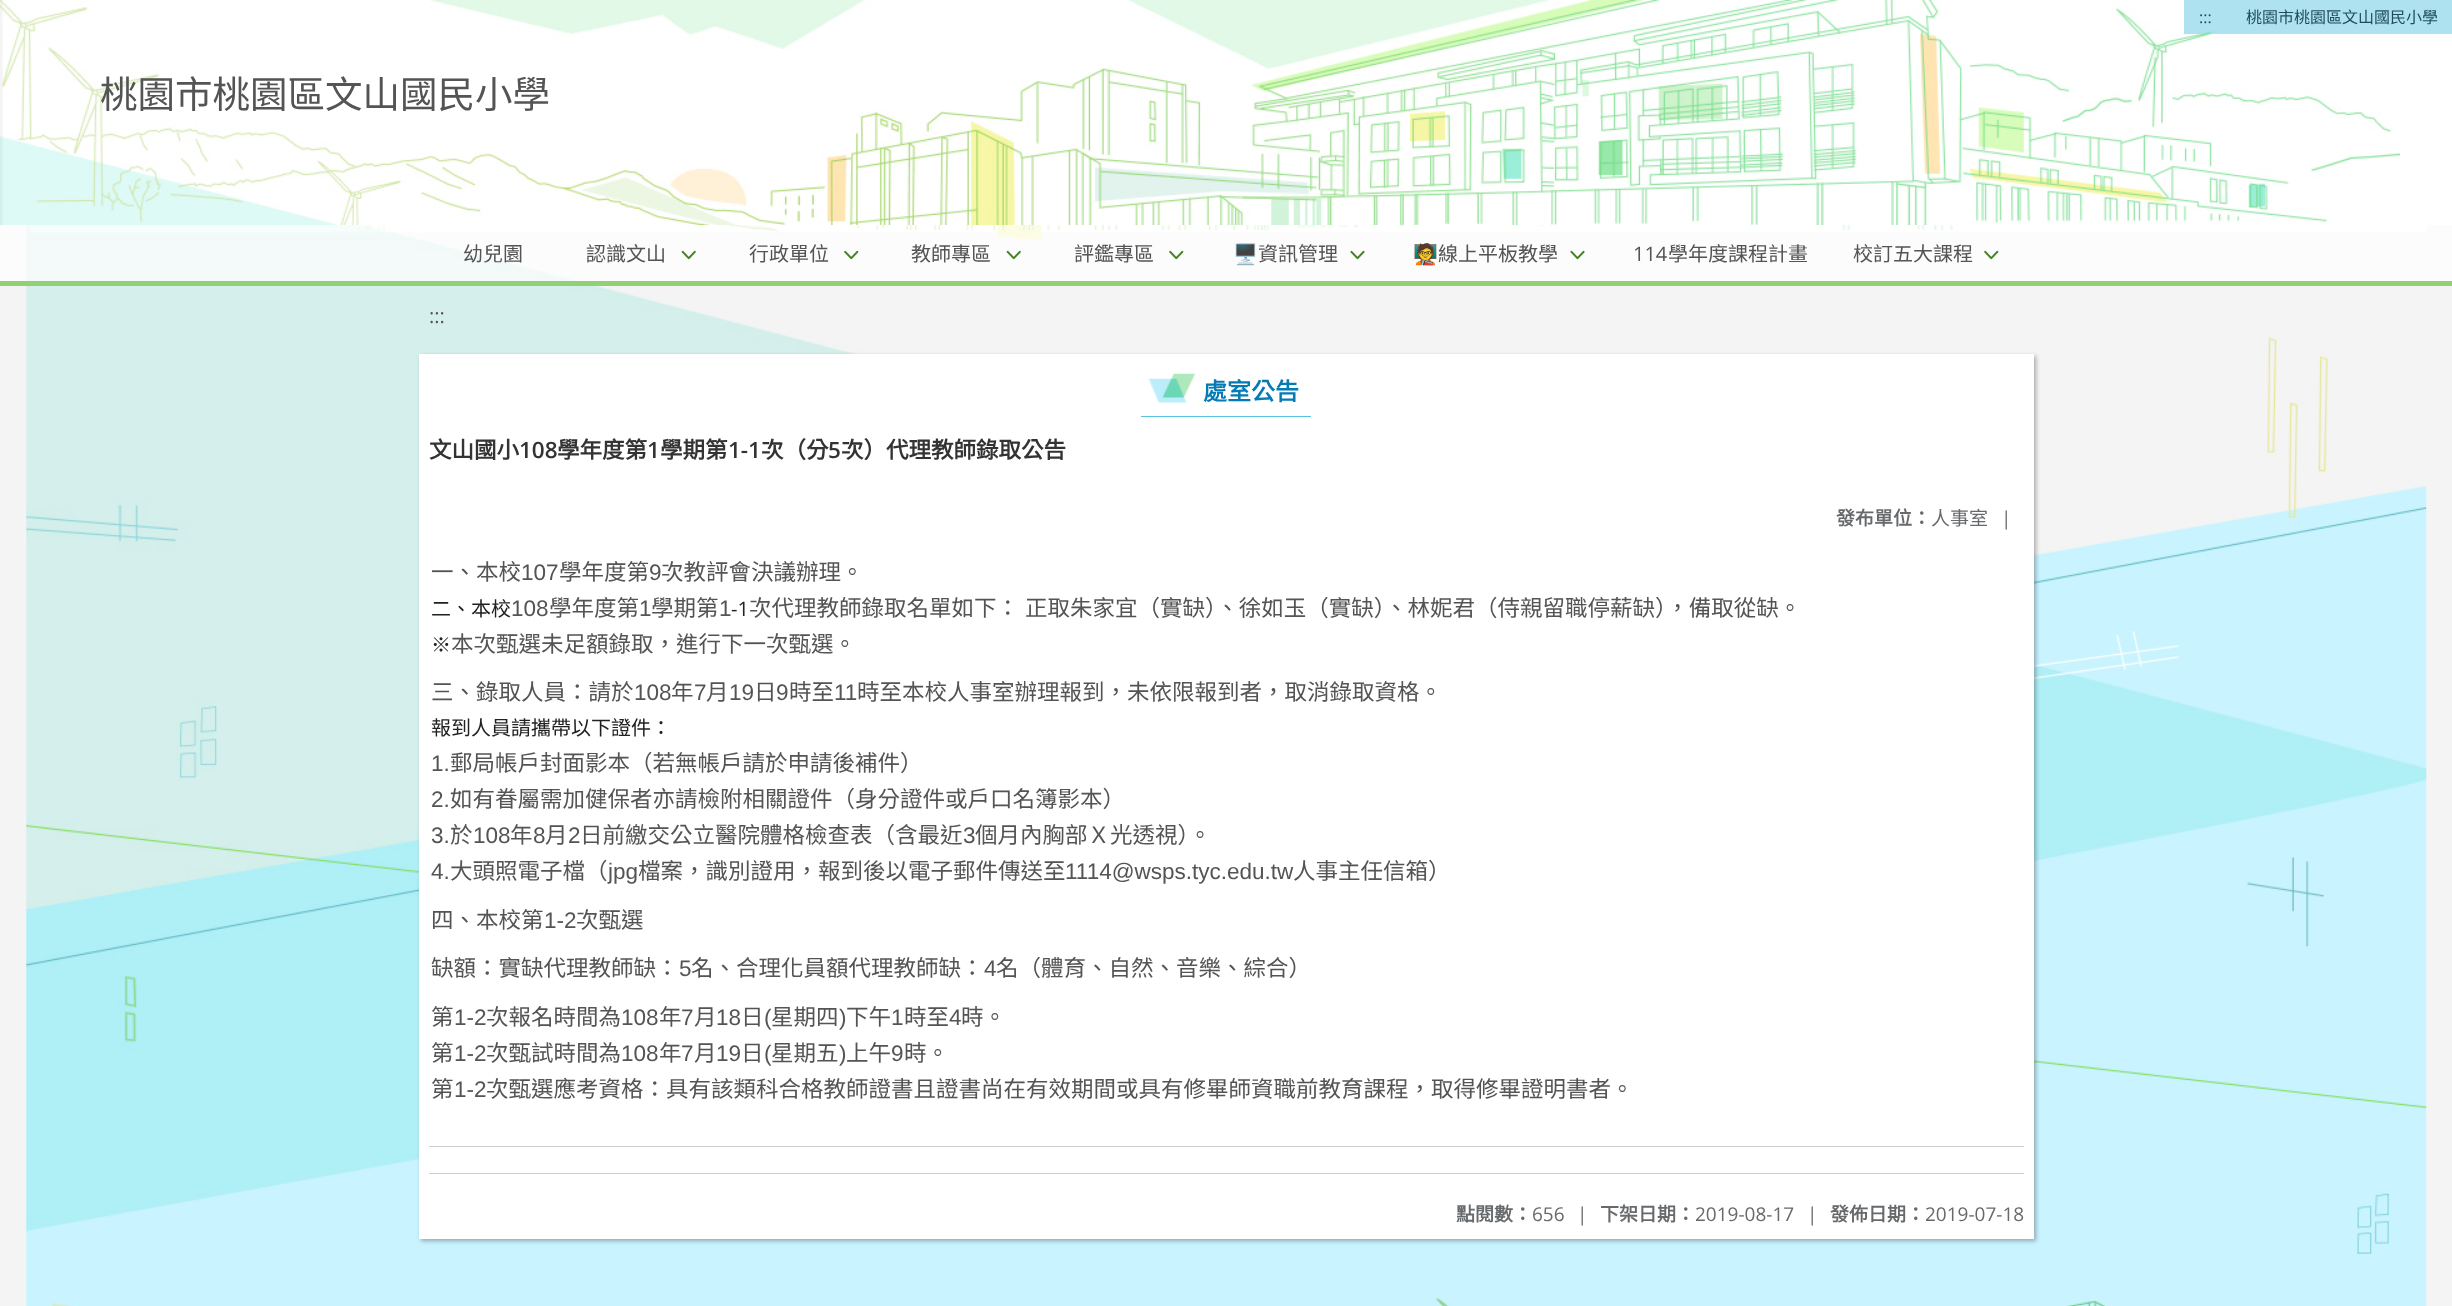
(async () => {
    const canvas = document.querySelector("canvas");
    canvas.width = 2452;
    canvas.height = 1306;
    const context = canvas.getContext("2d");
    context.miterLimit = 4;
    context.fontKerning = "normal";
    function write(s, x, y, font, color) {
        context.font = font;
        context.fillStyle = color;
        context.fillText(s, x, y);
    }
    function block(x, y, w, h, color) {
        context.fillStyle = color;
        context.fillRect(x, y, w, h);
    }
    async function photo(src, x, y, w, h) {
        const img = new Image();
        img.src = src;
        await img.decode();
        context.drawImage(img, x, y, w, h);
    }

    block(0, 0, 2452, 1306, "rgb(244, 244, 244)");
    await photo("media/1.png", 26, 225, 2401, 1081);
    block(2400, 0, 52, 225, "rgb(255, 255, 255)");
    await photo("media/2.png", 0, 0, 2400, 225);
    block(2184, 0, 268, 34, "rgba(140, 213, 234, 0.7)");
    write(":::", 2199, 23, "16px Open Sans", "rgb(31, 76, 93)");
    write("桃園市桃園區文山國民小學", 2246, 23, "16px Noto Sans CJK TC", "rgb(31, 76, 93)");
    write("桃園市桃園區文山國民小學", 100, 108, "37.5px Noto Sans CJK TC", "rgb(84, 84, 84)");
    block(0, 225, 2452, 56, "rgba(255, 255, 255, 0.7)");
    block(0, 281, 2452, 5, "rgb(145, 208, 117)");
    write("幼兒園", 463, 261, "20px Noto Sans CJK TC", "rgb(84, 84, 84)");
    write("認識文山", 586, 261, "20px Noto Sans CJK TC", "rgb(84, 84, 84)");
    await photo("media/3.png", 681, 250, 15, 10);
    write("行政單位", 749, 261, "20px Noto Sans CJK TC", "rgb(84, 84, 84)");
    await photo("media/4.png", 844, 250, 15, 10);
    write("教師專區", 911, 261, "20px Noto Sans CJK TC", "rgb(84, 84, 84)");
    await photo("media/3.png", 1006, 250, 15, 10);
    write("評鑑專區", 1074, 261, "20px Noto Sans CJK TC", "rgb(84, 84, 84)");
    await photo("media/4.png", 1169, 250, 15, 10);
    write("🖥️", 1233, 261, "20px Noto Color Emoji", "rgb(84, 84, 84)");
    write("資訊管理", 1258, 261, "20px Noto Sans CJK TC", "rgb(84, 84, 84)");
    await photo("media/5.png", 1350, 250, 15, 10);
    write("🧑‍🏫", 1413, 261, "20px Noto Color Emoji", "rgb(84, 84, 84)");
    write("線上平板教學", 1438, 261, "20px Noto Sans CJK TC", "rgb(84, 84, 84)");
    await photo("media/5.png", 1570, 250, 15, 10);
    write("114", 1633, 261, "20px Open Sans", "rgb(84, 84, 84)");
    write("學年度課程計畫", 1668, 261, "20px Noto Sans CJK TC", "rgb(84, 84, 84)");
    write("校訂五大課程", 1853, 261, "20px Noto Sans CJK TC", "rgb(84, 84, 84)");
    await photo("media/4.png", 1984, 250, 15, 10);
    write(":::", 429, 323, "20px Open Sans", "rgb(84, 84, 84)");
    context.fillStyle = "rgba(0, 0, 0, 0.3)";
    context.filter = "blur(2px)";
    context.beginPath();
    context.rect(421, 356, 1615, 885);
    context.fill();
    context.filter = "none";
    block(419, 354, 1615, 885, "rgb(255, 255, 255)");
    block(1141, 416, 170, 1, "rgb(88, 195, 224)");
    await photo("media/6.png", 1148, 373, 48, 30);
    write("處室公告", 1203, 400, "bold 24px Noto Sans CJK TC", "rgb(5, 123, 181)");
    write("文山國小", 429, 458, "bold 22.5px Noto Sans CJK TC", "rgb(51, 51, 51)");
    write("108", 519, 458, "600 22.5px Open Sans", "rgb(51, 51, 51)");
    write("學年度第", 557, 458, "bold 22.5px Noto Sans CJK TC", "rgb(51, 51, 51)");
    write("1", 647, 458, "600 22.5px Open Sans", "rgb(51, 51, 51)");
    write("學期第", 660, 458, "bold 22.5px Noto Sans CJK TC", "rgb(51, 51, 51)");
    write("1-1", 728, 458, "600 22.5px Open Sans", "rgb(51, 51, 51)");
    write("次（分", 761, 458, "bold 22.5px Noto Sans CJK TC", "rgb(51, 51, 51)");
    write("5", 828, 458, "600 22.5px Open Sans", "rgb(51, 51, 51)");
    write("次）代理教師錄取公告", 841, 458, "bold 22.5px Noto Sans CJK TC", "rgb(51, 51, 51)");
    write("發布單位：", 1836, 525, "bold 19px Noto Sans CJK TC", "rgb(103, 106, 108)");
    write("人事室", 1931, 525, "19px Noto Sans CJK TC", "rgb(103, 106, 108)");
    write("|", 2001, 525, "19px Open Sans", "rgb(103, 106, 108)");
    write("一、本校", 431, 580, "22.5px Noto Sans CJK TC", "rgb(84, 84, 84)");
    write("107", 521, 580, "22.5px Liberation Sans", "rgb(84, 84, 84)");
    write("學年度第", 559, 580, "22.5px Noto Sans CJK TC", "rgb(84, 84, 84)");
    write("9", 649, 580, "22.5px Liberation Sans", "rgb(84, 84, 84)");
    write("次教評會決議辦理。", 661, 580, "22.5px Noto Sans CJK TC", "rgb(84, 84, 84)");
    write("二、本校", 431, 616, "20px Noto Sans CJK TC", "rgb(33, 33, 33)");
    write("108", 511, 616, "22.5px Liberation Sans", "rgb(84, 84, 84)");
    write("學年度第", 549, 616, "22.5px Noto Sans CJK TC", "rgb(84, 84, 84)");
    write("1", 639, 616, "22.5px Liberation Sans", "rgb(84, 84, 84)");
    write("學期第", 651, 616, "22.5px Noto Sans CJK TC", "rgb(84, 84, 84)");
    write("1", 719, 616, "22.5px Liberation Sans", "rgb(84, 84, 84)");
    write("-1", 731, 616, "20px Open Sans", "rgb(33, 33, 33)");
    write("次代理教師錄取名單如下：", 749, 616, "22.5px Noto Sans CJK TC", "rgb(84, 84, 84)");
    write("正取朱家宜（實缺）、徐如玉（實缺）、林妮君（侍親留職停薪缺），備取從缺。", 1025, 616, "22.5px Noto Sans CJK TC", "rgb(84, 84, 84)");
    write("※", 431, 652, "20px Noto Sans CJK TC", "rgb(33, 33, 33)");
    write("本次甄選未足額錄取，進行下一次甄選。", 451, 652, "22.5px Noto Sans CJK TC", "rgb(84, 84, 84)");
    write("三、錄取人員：請於", 431, 700, "22.5px Noto Sans CJK TC", "rgb(84, 84, 84)");
    write("108", 634, 700, "22.5px Liberation Sans", "rgb(84, 84, 84)");
    write("年", 671, 700, "22.5px Noto Sans CJK TC", "rgb(84, 84, 84)");
    write("7", 694, 700, "22.5px Liberation Sans", "rgb(84, 84, 84)");
    write("月", 706, 700, "22.5px Noto Sans CJK TC", "rgb(84, 84, 84)");
    write("19", 729, 700, "22.5px Liberation Sans", "rgb(84, 84, 84)");
    write("日", 754, 700, "22.5px Noto Sans CJK TC", "rgb(84, 84, 84)");
    write("9", 776, 700, "22.5px Liberation Sans", "rgb(84, 84, 84)");
    write("時至", 789, 700, "22.5px Noto Sans CJK TC", "rgb(84, 84, 84)");
    write("11", 834, 700, "22.5px Liberation Sans", "rgb(84, 84, 84)");
    write("時至本校人事室辦理報到，未依限報到者，取消錄取資格。", 857, 700, "22.5px Noto Sans CJK TC", "rgb(84, 84, 84)");
    write("報到人員請攜帶以下證件：", 431, 735, "20px Noto Sans CJK TC", "rgb(33, 33, 33)");
    write("1.", 431, 771, "22.5px Liberation Sans", "rgb(84, 84, 84)");
    write("郵局帳戶封面影本（若無帳戶請於申請後補件）", 450, 771, "22.5px Noto Sans CJK TC", "rgb(84, 84, 84)");
    write("2.", 431, 807, "22.5px Liberation Sans", "rgb(84, 84, 84)");
    write("如有眷屬需加健保者亦請檢附相關證件（身分證件或戶口名簿影本）", 450, 807, "22.5px Noto Sans CJK TC", "rgb(84, 84, 84)");
    write("3.", 431, 843, "22.5px Liberation Sans", "rgb(84, 84, 84)");
    write("於", 450, 843, "22.5px Noto Sans CJK TC", "rgb(84, 84, 84)");
    write("108", 473, 843, "22.5px Liberation Sans", "rgb(84, 84, 84)");
    write("年", 510, 843, "22.5px Noto Sans CJK TC", "rgb(84, 84, 84)");
    write("8", 533, 843, "22.5px Liberation Sans", "rgb(84, 84, 84)");
    write("月", 545, 843, "22.5px Noto Sans CJK TC", "rgb(84, 84, 84)");
    write("2", 568, 843, "22.5px Liberation Sans", "rgb(84, 84, 84)");
    write("日前繳交公立醫院體格檢查表（含最近", 580, 843, "22.5px Noto Sans CJK TC", "rgb(84, 84, 84)");
    write("3", 963, 843, "22.5px Liberation Sans", "rgb(84, 84, 84)");
    write("個月內胸部Ｘ光透視）。", 975, 843, "22.5px Noto Sans CJK TC", "rgb(84, 84, 84)");
    write("4.", 431, 879, "22.5px Liberation Sans", "rgb(84, 84, 84)");
    write("大頭照電子檔（", 450, 879, "22.5px Noto Sans CJK TC", "rgb(84, 84, 84)");
    write("jpg", 608, 879, "22.5px Liberation Sans", "rgb(84, 84, 84)");
    write("檔案，識別證用，報到後以電子郵件傳送至", 638, 879, "22.5px Noto Sans CJK TC", "rgb(84, 84, 84)");
    write("1114@wsps.tyc.edu.tw", 1065, 879, "22.5px Liberation Sans", "rgb(84, 84, 84)");
    write("人事主任信箱）", 1293, 879, "22.5px Noto Sans CJK TC", "rgb(84, 84, 84)");
    write("四、本校第", 431, 928, "22.5px Noto Sans CJK TC", "rgb(84, 84, 84)");
    write("1-2", 544, 928, "22.5px Liberation Sans", "rgb(84, 84, 84)");
    write("次甄選", 576, 928, "22.5px Noto Sans CJK TC", "rgb(84, 84, 84)");
    write("缺額：實缺代理教師缺：", 431, 976, "22.5px Noto Sans CJK TC", "rgb(84, 84, 84)");
    write("5", 679, 976, "22.5px Liberation Sans", "rgb(84, 84, 84)");
    write("名、合理化員額代理教師缺：", 691, 976, "22.5px Noto Sans CJK TC", "rgb(84, 84, 84)");
    write("4", 984, 976, "22.5px Liberation Sans", "rgb(84, 84, 84)");
    write("名（體育、自然、音樂、綜合）", 996, 976, "22.5px Noto Sans CJK TC", "rgb(84, 84, 84)");
    write("第", 431, 1025, "22.5px Noto Sans CJK TC", "rgb(84, 84, 84)");
    write("1-2", 454, 1025, "22.5px Liberation Sans", "rgb(84, 84, 84)");
    write("次報名時間為", 486, 1025, "22.5px Noto Sans CJK TC", "rgb(84, 84, 84)");
    write("108", 621, 1025, "22.5px Liberation Sans", "rgb(84, 84, 84)");
    write("年", 659, 1025, "22.5px Noto Sans CJK TC", "rgb(84, 84, 84)");
    write("7", 681, 1025, "22.5px Liberation Sans", "rgb(84, 84, 84)");
    write("月", 694, 1025, "22.5px Noto Sans CJK TC", "rgb(84, 84, 84)");
    write("18", 716, 1025, "22.5px Liberation Sans", "rgb(84, 84, 84)");
    write("日", 741, 1025, "22.5px Noto Sans CJK TC", "rgb(84, 84, 84)");
    write("(", 764, 1025, "22.5px Liberation Sans", "rgb(84, 84, 84)");
    write("星期四", 771, 1025, "22.5px Noto Sans CJK TC", "rgb(84, 84, 84)");
    write(")", 839, 1025, "22.5px Liberation Sans", "rgb(84, 84, 84)");
    write("下午", 846, 1025, "22.5px Noto Sans CJK TC", "rgb(84, 84, 84)");
    write("1", 891, 1025, "22.5px Liberation Sans", "rgb(84, 84, 84)");
    write("時至", 904, 1025, "22.5px Noto Sans CJK TC", "rgb(84, 84, 84)");
    write("4", 949, 1025, "22.5px Liberation Sans", "rgb(84, 84, 84)");
    write("時。", 961, 1025, "22.5px Noto Sans CJK TC", "rgb(84, 84, 84)");
    write("第", 431, 1061, "22.5px Noto Sans CJK TC", "rgb(84, 84, 84)");
    write("1-2", 454, 1061, "22.5px Liberation Sans", "rgb(84, 84, 84)");
    write("次甄試時間為", 486, 1061, "22.5px Noto Sans CJK TC", "rgb(84, 84, 84)");
    write("108", 621, 1061, "22.5px Liberation Sans", "rgb(84, 84, 84)");
    write("年", 659, 1061, "22.5px Noto Sans CJK TC", "rgb(84, 84, 84)");
    write("7", 681, 1061, "22.5px Liberation Sans", "rgb(84, 84, 84)");
    write("月", 694, 1061, "22.5px Noto Sans CJK TC", "rgb(84, 84, 84)");
    write("19", 716, 1061, "22.5px Liberation Sans", "rgb(84, 84, 84)");
    write("日", 741, 1061, "22.5px Noto Sans CJK TC", "rgb(84, 84, 84)");
    write("(", 764, 1061, "22.5px Liberation Sans", "rgb(84, 84, 84)");
    write("星期五", 771, 1061, "22.5px Noto Sans CJK TC", "rgb(84, 84, 84)");
    write(")", 839, 1061, "22.5px Liberation Sans", "rgb(84, 84, 84)");
    write("上午", 846, 1061, "22.5px Noto Sans CJK TC", "rgb(84, 84, 84)");
    write("9", 891, 1061, "22.5px Liberation Sans", "rgb(84, 84, 84)");
    write("時。", 904, 1061, "22.5px Noto Sans CJK TC", "rgb(84, 84, 84)");
    write("第", 431, 1097, "22.5px Noto Sans CJK TC", "rgb(84, 84, 84)");
    write("1-2", 454, 1097, "22.5px Liberation Sans", "rgb(84, 84, 84)");
    write("次甄選應考資格：具有該類科合格教師證書且證書尚在有效期間或具有修畢師資職前教育課程，取得修畢證明書者。", 486, 1097, "22.5px Noto Sans CJK TC", "rgb(84, 84, 84)");
    block(429, 1146, 1595, 1, "rgb(204, 204, 204)");
    block(429, 1173, 1595, 1, "rgb(204, 204, 204)");
    write("點閱數：", 1456, 1221, "bold 19px Noto Sans CJK TC", "rgb(103, 106, 108)");
    write("656", 1532, 1221, "19px Open Sans", "rgb(103, 106, 108)");
    write("|", 1577, 1221, "19px Open Sans", "rgb(103, 106, 108)");
    write("下架日期：", 1600, 1221, "bold 19px Noto Sans CJK TC", "rgb(103, 106, 108)");
    write("2019-08-17", 1695, 1221, "19px Open Sans", "rgb(103, 106, 108)");
    write("|", 1807, 1221, "19px Open Sans", "rgb(103, 106, 108)");
    write("發佈日期：", 1830, 1221, "bold 19px Noto Sans CJK TC", "rgb(103, 106, 108)");
    write("2019-07-18", 1925, 1221, "19px Open Sans", "rgb(103, 106, 108)");
    await photo("media/7.png", 52, 1297, 2054, 9);
})();
